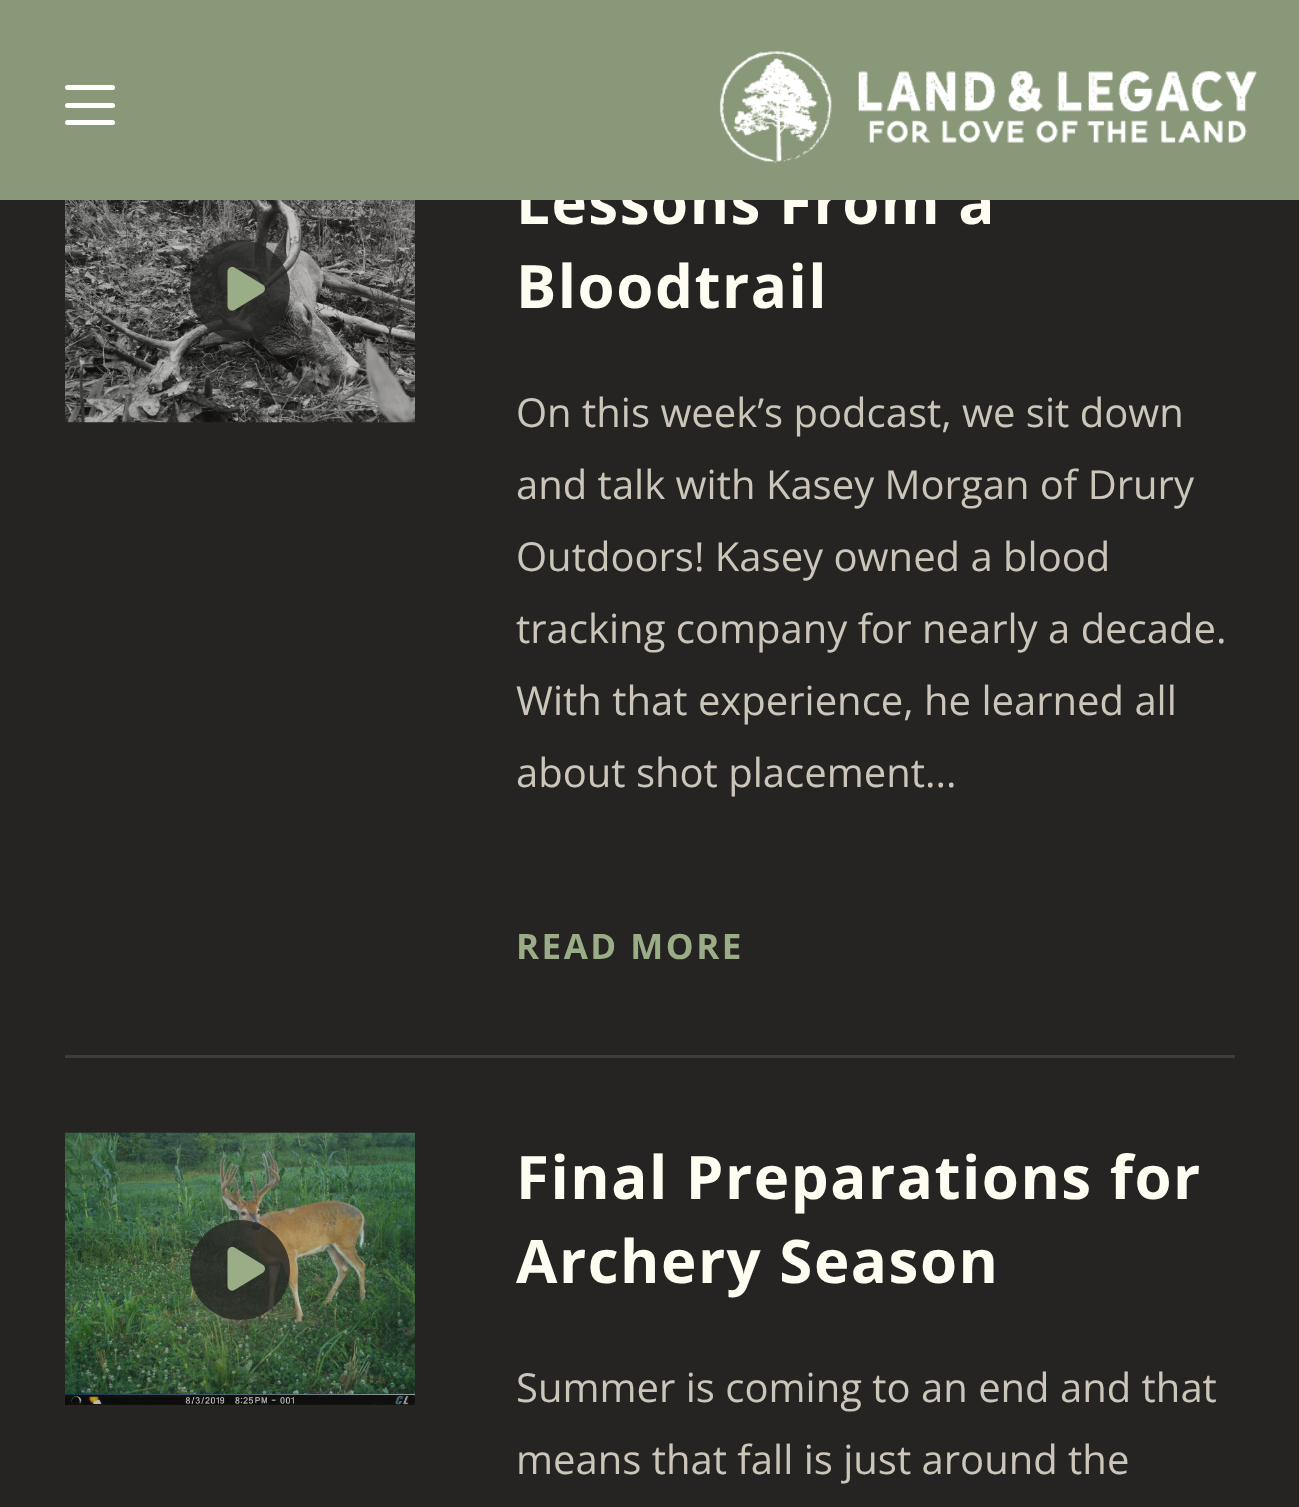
(async () => {
    const canvas = document.querySelector("canvas");
    canvas.width = 1299;
    canvas.height = 1507;
    const context = canvas.getContext("2d");
    context.miterLimit = 4;
    context.fontKerning = "normal";
    function write(s, x, y, font, color) {
        context.font = font;
        context.fillStyle = color;
        context.fillText(s, x, y);
    }
    function block(x, y, w, h, color) {
        context.fillStyle = color;
        context.fillRect(x, y, w, h);
    }
    function card(x, y, w, h, r, color) {
        context.fillStyle = color;
        context.beginPath();
        context.roundRect(x, y, w, h, r);
        context.fill();
    }
    async function photo(src, x, y, w, h) {
        const img = new Image();
        img.src = src;
        await img.decode();
        context.drawImage(img, x, y, w, h);
    }
    let gradient;

    block(0, 0, 1299, 1507, "rgb(37, 36, 34)");
    context.letterSpacing = "1.5px";
    write("Lessons From a", 516, 224, "bold 60px Open Sans", "rgb(255, 252, 242)");
    block(0, 0, 1299, 200, "rgb(137, 152, 120)");
    card(65, 85, 50, 5, 2.5, "rgb(255, 255, 255)");
    card(65, 103, 50, 5, 2.5, "rgb(255, 255, 255)");
    card(65, 120, 50, 5, 2.5, "rgb(255, 255, 255)");
    await photo("media/1.png", 719, 51, 538, 112);
    block(65, 1055, 1170, 3, "rgb(64, 61, 57)");
    await photo("media/2.png", 65, 200, 350, 223);
    gradient = context.createLinearGradient(393, 138, 87, 444);
    gradient.addColorStop(0, "rgba(64, 61, 57, 0.3)");
    gradient.addColorStop(1, "rgba(37, 36, 34, 0.3)");
    context.fillStyle = gradient;
    context.fillRect(65, 200, 350, 223);
    context.fillStyle = "rgba(38, 37, 35, 0.8)";
    context.beginPath();
    context.arc(240, 290, 50, 0, Math.PI * 2);
    context.fill();
    await photo("media/3.png", 227, 266, 38, 45);
    write("Bloodtrail", 516, 308, "bold 60px Open Sans", "rgb(255, 252, 242)");
    context.letterSpacing = "0px";
    write("On this week’s podcast, we sit down", 516, 427, "40px Open Sans", "rgb(204, 197, 185)");
    write("and talk with Kasey Morgan of Drury", 516, 499, "40px Open Sans", "rgb(204, 197, 185)");
    write("Outdoors! Kasey owned a blood", 516, 571, "40px Open Sans", "rgb(204, 197, 185)");
    write("tracking company for nearly a decade.", 516, 643, "40px Open Sans", "rgb(204, 197, 185)");
    write("With that experience, he learned all", 516, 715, "40px Open Sans", "rgb(204, 197, 185)");
    write("about shot placement...", 516, 787, "40px Open Sans", "rgb(204, 197, 185)");
    context.letterSpacing = "2.5px";
    write("READ MORE", 516, 959, "bold 35px Open Sans", "rgb(155, 173, 134)");
    await photo("media/4.png", 65, 1132, 350, 273);
    context.fillStyle = "rgba(38, 37, 35, 0.8)";
    context.beginPath();
    context.arc(240, 1270, 50, 0, Math.PI * 2);
    context.fill();
    await photo("media/5.png", 227, 1246, 38, 45);
    context.letterSpacing = "1.5px";
    write("Final Preparations for", 516, 1199, "bold 60px Open Sans", "rgb(255, 252, 242)");
    write("Archery Season", 516, 1283, "bold 60px Open Sans", "rgb(255, 252, 242)");
    context.letterSpacing = "0px";
    write("Summer is coming to an end and that", 516, 1402, "40px Open Sans", "rgb(204, 197, 185)");
    write("means that fall is just around the", 516, 1474, "40px Open Sans", "rgb(204, 197, 185)");
})();
